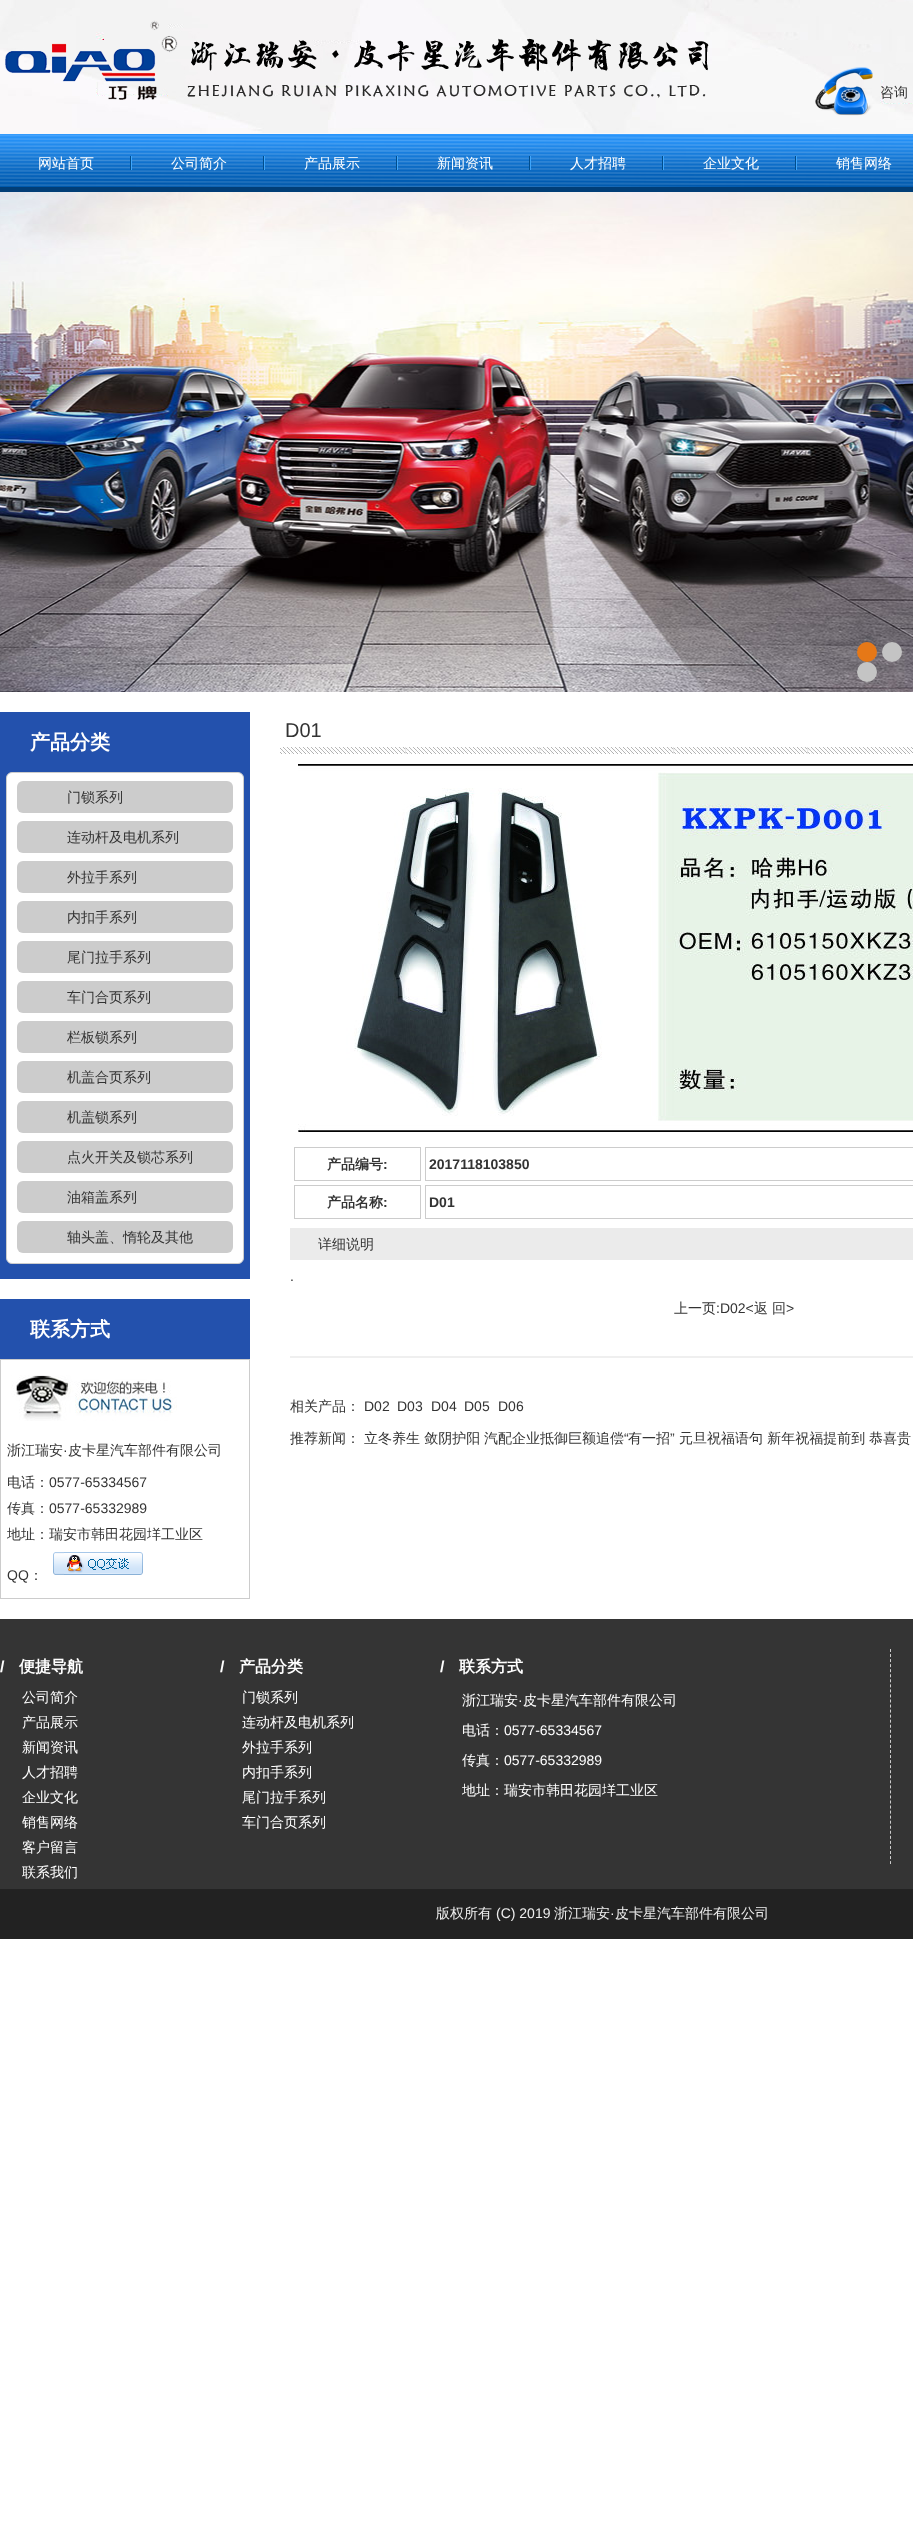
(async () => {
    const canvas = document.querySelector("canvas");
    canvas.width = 913;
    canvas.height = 2531;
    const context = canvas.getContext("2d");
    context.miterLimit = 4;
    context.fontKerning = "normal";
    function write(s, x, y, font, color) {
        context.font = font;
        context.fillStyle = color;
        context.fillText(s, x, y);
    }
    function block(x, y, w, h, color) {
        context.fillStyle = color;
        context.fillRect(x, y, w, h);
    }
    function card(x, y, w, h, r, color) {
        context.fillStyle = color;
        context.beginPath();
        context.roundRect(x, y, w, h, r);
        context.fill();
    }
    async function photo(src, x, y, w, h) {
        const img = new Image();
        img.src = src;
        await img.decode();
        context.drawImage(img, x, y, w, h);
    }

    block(0, 0, 913, 2531, "rgb(255, 255, 255)");
    await photo("media/1.png", 0, 0, 913, 192);
    await photo("media/2.png", 5, 20, 704, 80);
    await photo("media/3.png", 815, 67, 58, 49);
    write("咨询", 880, 97, "500 14px WenQuanYi Zen Hei", "rgb(51, 51, 51)");
    await photo("media/4.png", 130, 156, 2, 14);
    write("网站首页", 38, 168, "500 14px WenQuanYi Zen Hei", "rgb(255, 255, 255)");
    await photo("media/4.png", 263, 156, 2, 14);
    write("公司简介", 171, 168, "500 14px WenQuanYi Zen Hei", "rgb(255, 255, 255)");
    await photo("media/4.png", 396, 156, 2, 14);
    write("产品展示", 304, 168, "500 14px WenQuanYi Zen Hei", "rgb(255, 255, 255)");
    await photo("media/4.png", 529, 156, 2, 14);
    write("新闻资讯", 437, 168, "500 14px WenQuanYi Zen Hei", "rgb(255, 255, 255)");
    await photo("media/4.png", 662, 156, 2, 14);
    write("人才招聘", 570, 168, "500 14px WenQuanYi Zen Hei", "rgb(255, 255, 255)");
    await photo("media/4.png", 795, 156, 2, 14);
    write("企业文化", 703, 168, "500 14px WenQuanYi Zen Hei", "rgb(255, 255, 255)");
    write("销售网络", 836, 168, "500 14px WenQuanYi Zen Hei", "rgb(255, 255, 255)");
    await photo("media/5.png", 0, 192, 913, 500);
    context.fillStyle = "rgb(230, 120, 23)";
    context.beginPath();
    context.arc(867, 652, 10, 0, Math.PI * 2);
    context.fill();
    context.fillStyle = "rgb(196, 196, 196)";
    context.beginPath();
    context.arc(892, 652, 10, 0, Math.PI * 2);
    context.fill();
    context.beginPath();
    context.arc(867, 672, 10, 0, Math.PI * 2);
    context.fill();
    block(0, 712, 250, 567, "rgb(35, 81, 173)");
    write("产品分类", 30, 749, "bold 20px WenQuanYi Zen Hei", "rgb(255, 255, 255)");
    context.beginPath();
    context.roundRect(6.5, 772.5, 237, 491, 5.5);
    context.fill();
    context.strokeStyle = "rgb(204, 204, 204)";
    context.stroke();
    card(17, 781, 216, 32, 6, "rgb(204, 204, 204)");
    write("门锁系列", 67, 802, "500 14px WenQuanYi Zen Hei", "rgb(51, 51, 51)");
    card(17, 821, 216, 32, 6, "rgb(204, 204, 204)");
    write("连动杆及电机系列", 67, 842, "500 14px WenQuanYi Zen Hei", "rgb(51, 51, 51)");
    card(17, 861, 216, 32, 6, "rgb(204, 204, 204)");
    write("外拉手系列", 67, 882, "500 14px WenQuanYi Zen Hei", "rgb(51, 51, 51)");
    card(17, 901, 216, 32, 6, "rgb(204, 204, 204)");
    write("内扣手系列", 67, 922, "500 14px WenQuanYi Zen Hei", "rgb(51, 51, 51)");
    card(17, 941, 216, 32, 6, "rgb(204, 204, 204)");
    write("尾门拉手系列", 67, 962, "500 14px WenQuanYi Zen Hei", "rgb(51, 51, 51)");
    card(17, 981, 216, 32, 6, "rgb(204, 204, 204)");
    write("车门合页系列", 67, 1002, "500 14px WenQuanYi Zen Hei", "rgb(51, 51, 51)");
    card(17, 1021, 216, 32, 6, "rgb(204, 204, 204)");
    write("栏板锁系列", 67, 1042, "500 14px WenQuanYi Zen Hei", "rgb(51, 51, 51)");
    card(17, 1061, 216, 32, 6, "rgb(204, 204, 204)");
    write("机盖合页系列", 67, 1082, "500 14px WenQuanYi Zen Hei", "rgb(51, 51, 51)");
    card(17, 1101, 216, 32, 6, "rgb(204, 204, 204)");
    write("机盖锁系列", 67, 1122, "500 14px WenQuanYi Zen Hei", "rgb(51, 51, 51)");
    card(17, 1141, 216, 32, 6, "rgb(204, 204, 204)");
    write("点火开关及锁芯系列", 67, 1162, "500 14px WenQuanYi Zen Hei", "rgb(51, 51, 51)");
    card(17, 1181, 216, 32, 6, "rgb(204, 204, 204)");
    write("油箱盖系列", 67, 1202, "500 14px WenQuanYi Zen Hei", "rgb(51, 51, 51)");
    card(17, 1221, 216, 32, 6, "rgb(204, 204, 204)");
    write("轴头盖、惰轮及其他", 67, 1242, "500 14px WenQuanYi Zen Hei", "rgb(51, 51, 51)");
    block(0, 1299, 250, 60, "rgb(35, 81, 173)");
    write("联系方式", 30, 1336, "bold 20px WenQuanYi Zen Hei", "rgb(255, 255, 255)");
    context.strokeRect(0.5, 1359.5, 249, 239);
    await photo("media/6.png", 11, 1375, 166, 46);
    write("浙江瑞安", 7, 1455, "500 14px WenQuanYi Zen Hei", "rgb(51, 51, 51)");
    write("·", 63, 1455, "14px Liberation Sans", "rgb(51, 51, 51)");
    write("皮卡星汽车部件有限公司", 68, 1455, "500 14px WenQuanYi Zen Hei", "rgb(51, 51, 51)");
    write("电话：", 7, 1487, "500 14px WenQuanYi Zen Hei", "rgb(51, 51, 51)");
    write("0577-65334567", 49, 1487, "14px Liberation Sans", "rgb(51, 51, 51)");
    write("传真：", 7, 1513, "500 14px WenQuanYi Zen Hei", "rgb(51, 51, 51)");
    write("0577-65332989", 49, 1513, "14px Liberation Sans", "rgb(51, 51, 51)");
    write("地址：瑞安市韩田花园垟工业区", 7, 1539, "500 14px WenQuanYi Zen Hei", "rgb(51, 51, 51)");
    await photo("media/7.png", 53, 1552, 90, 23);
    write("QQ", 7, 1580, "14px Liberation Sans", "rgb(51, 51, 51)");
    write("：", 29, 1580, "500 14px WenQuanYi Zen Hei", "rgb(51, 51, 51)");
    await photo("media/8.png", 280, 747, 633, 7);
    write("D01", 285, 737, "20px Liberation Sans", "rgb(51, 51, 51)");
    await photo("media/9.png", 298, 764, 615, 368);
    context.strokeRect(294.5, 1147.5, 126, 33);
    write("产品编号", 327, 1169, "bold 14px WenQuanYi Zen Hei", "rgb(51, 51, 51)");
    write(":", 383, 1169, "bold 14px Liberation Sans", "rgb(51, 51, 51)");
    context.strokeRect(425.5, 1147.5, 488, 33);
    write("2017118103850", 429, 1169, "bold 14px Liberation Sans", "rgb(51, 51, 51)");
    context.strokeRect(294.5, 1185.5, 126, 33);
    write("产品名称", 327, 1207, "bold 14px WenQuanYi Zen Hei", "rgb(51, 51, 51)");
    write(":", 383, 1207, "bold 14px Liberation Sans", "rgb(51, 51, 51)");
    context.strokeRect(425.5, 1185.5, 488, 33);
    write("D01", 429, 1207, "bold 14px Liberation Sans", "rgb(51, 51, 51)");
    block(290, 1228, 623, 32, "rgb(235, 235, 235)");
    write("详细说明", 318, 1249, "500 14px WenQuanYi Zen Hei", "rgb(51, 51, 51)");
    write(".", 290, 1281, "14px Liberation Sans", "rgb(51, 51, 51)");
    write("上一页", 674, 1313, "500 14px WenQuanYi Zen Hei", "rgb(51, 51, 51)");
    write(":D02<", 716, 1313, "14px Liberation Sans", "rgb(51, 51, 51)");
    write("返", 754, 1313, "500 14px WenQuanYi Zen Hei", "rgb(51, 51, 51)");
    write("回", 772, 1313, "500 14px WenQuanYi Zen Hei", "rgb(51, 51, 51)");
    write(">", 786, 1313, "14px Liberation Sans", "rgb(51, 51, 51)");
    block(290, 1356, 623, 2, "rgb(239, 239, 239)");
    write("相关产品：", 290, 1411, "500 14px WenQuanYi Zen Hei", "rgb(51, 51, 51)");
    write("D02", 364, 1411, "14px Liberation Sans", "rgb(51, 51, 51)");
    write("D03", 397, 1411, "14px Liberation Sans", "rgb(51, 51, 51)");
    write("D04", 431, 1411, "14px Liberation Sans", "rgb(51, 51, 51)");
    write("D05", 464, 1411, "14px Liberation Sans", "rgb(51, 51, 51)");
    write("D06", 498, 1411, "14px Liberation Sans", "rgb(51, 51, 51)");
    write("推荐新闻：", 290, 1443, "500 14px WenQuanYi Zen Hei", "rgb(51, 51, 51)");
    write("立冬养生 敛阴护阳", 364, 1443, "500 14px WenQuanYi Zen Hei", "rgb(51, 51, 51)");
    write("汽配企业抵御巨额追偿", 484, 1443, "500 14px WenQuanYi Zen Hei", "rgb(51, 51, 51)");
    write("“", 624, 1443, "14px Liberation Sans", "rgb(51, 51, 51)");
    write("有一招", 628, 1443, "500 14px WenQuanYi Zen Hei", "rgb(51, 51, 51)");
    write("”", 670, 1443, "14px Liberation Sans", "rgb(51, 51, 51)");
    write("元旦祝福语句 新年祝福提前到", 679, 1443, "500 14px WenQuanYi Zen Hei", "rgb(51, 51, 51)");
    write("恭喜贵", 869, 1443, "500 14px WenQuanYi Zen Hei", "rgb(51, 51, 51)");
    await photo("media/10.png", 0, 1619, 913, 320);
    write("/", 0, 1672, "bold 16px Liberation Sans", "rgb(255, 255, 255)");
    write("便捷导航", 19, 1672, "bold 16px WenQuanYi Zen Hei", "rgb(255, 255, 255)");
    write("公司简介", 22, 1702, "500 14px WenQuanYi Zen Hei", "rgb(255, 255, 255)");
    write("产品展示", 22, 1727, "500 14px WenQuanYi Zen Hei", "rgb(255, 255, 255)");
    write("新闻资讯", 22, 1752, "500 14px WenQuanYi Zen Hei", "rgb(255, 255, 255)");
    write("人才招聘", 22, 1777, "500 14px WenQuanYi Zen Hei", "rgb(255, 255, 255)");
    write("企业文化", 22, 1802, "500 14px WenQuanYi Zen Hei", "rgb(255, 255, 255)");
    write("销售网络", 22, 1827, "500 14px WenQuanYi Zen Hei", "rgb(255, 255, 255)");
    write("客户留言", 22, 1852, "500 14px WenQuanYi Zen Hei", "rgb(255, 255, 255)");
    write("联系我们", 22, 1877, "500 14px WenQuanYi Zen Hei", "rgb(255, 255, 255)");
    write("/", 220, 1672, "bold 16px Liberation Sans", "rgb(255, 255, 255)");
    write("产品分类", 239, 1672, "bold 16px WenQuanYi Zen Hei", "rgb(255, 255, 255)");
    write("门锁系列", 242, 1702, "500 14px WenQuanYi Zen Hei", "rgb(255, 255, 255)");
    write("连动杆及电机系列", 242, 1727, "500 14px WenQuanYi Zen Hei", "rgb(255, 255, 255)");
    write("外拉手系列", 242, 1752, "500 14px WenQuanYi Zen Hei", "rgb(255, 255, 255)");
    write("内扣手系列", 242, 1777, "500 14px WenQuanYi Zen Hei", "rgb(255, 255, 255)");
    write("尾门拉手系列", 242, 1802, "500 14px WenQuanYi Zen Hei", "rgb(255, 255, 255)");
    write("车门合页系列", 242, 1827, "500 14px WenQuanYi Zen Hei", "rgb(255, 255, 255)");
    context.beginPath();
    context.moveTo(890.5, 1649);
    context.lineTo(890.5, 1864);
    context.setLineDash([3, 2.05]);
    context.stroke();
    write("/", 440, 1672, "bold 16px Liberation Sans", "rgb(255, 255, 255)");
    write("联系方式", 459, 1672, "bold 16px WenQuanYi Zen Hei", "rgb(255, 255, 255)");
    write("浙江瑞安", 462, 1705, "500 14px WenQuanYi Zen Hei", "rgb(255, 255, 255)");
    write("·", 518, 1705, "14px Liberation Sans", "rgb(255, 255, 255)");
    write("皮卡星汽车部件有限公司", 523, 1705, "500 14px WenQuanYi Zen Hei", "rgb(255, 255, 255)");
    write("电话：", 462, 1735, "500 14px WenQuanYi Zen Hei", "rgb(255, 255, 255)");
    write("0577-65334567", 504, 1735, "14px Liberation Sans", "rgb(255, 255, 255)");
    write("传真：", 462, 1765, "500 14px WenQuanYi Zen Hei", "rgb(255, 255, 255)");
    write("0577-65332989", 504, 1765, "14px Liberation Sans", "rgb(255, 255, 255)");
    write("地址：瑞安市韩田花园垟工业区", 462, 1795, "500 14px WenQuanYi Zen Hei", "rgb(255, 255, 255)");
    write("版权所有", 436, 1918, "500 14px WenQuanYi Zen Hei", "rgb(238, 238, 238)");
    write("(C) 2019", 496, 1918, "14px Liberation Sans", "rgb(238, 238, 238)");
    write("浙江瑞安", 554, 1918, "500 14px WenQuanYi Zen Hei", "rgb(238, 238, 238)");
    write("·", 610, 1918, "14px Liberation Sans", "rgb(238, 238, 238)");
    write("皮卡星汽车部件有限公司", 615, 1918, "500 14px WenQuanYi Zen Hei", "rgb(238, 238, 238)");
})();
